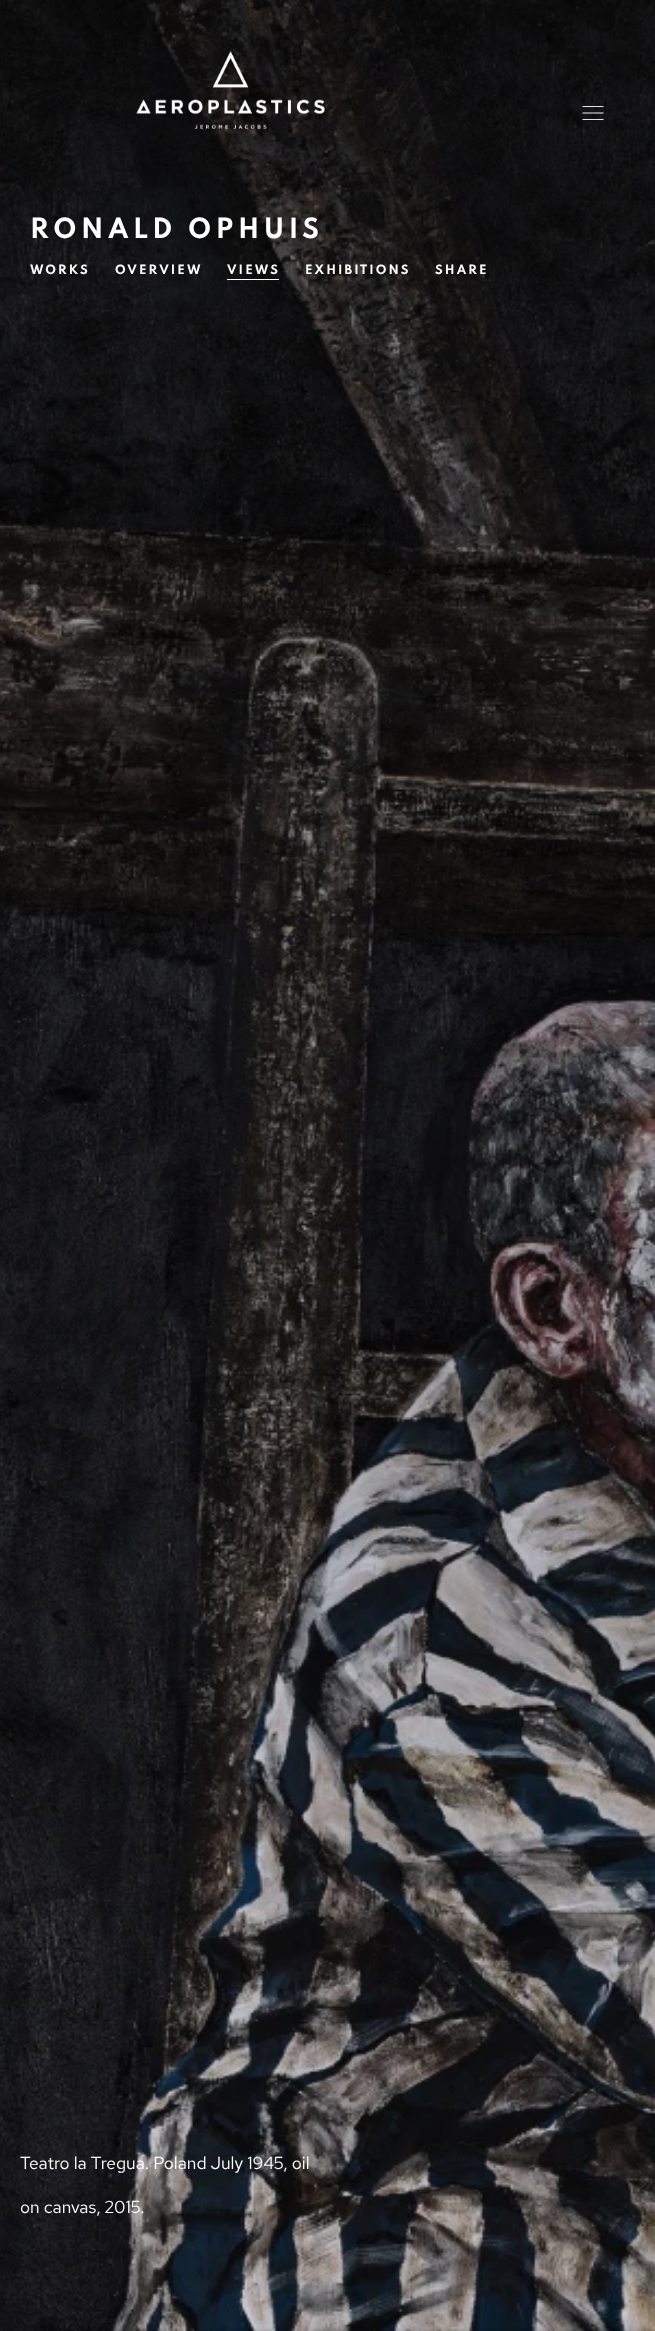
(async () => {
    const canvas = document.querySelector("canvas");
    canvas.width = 655;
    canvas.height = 2331;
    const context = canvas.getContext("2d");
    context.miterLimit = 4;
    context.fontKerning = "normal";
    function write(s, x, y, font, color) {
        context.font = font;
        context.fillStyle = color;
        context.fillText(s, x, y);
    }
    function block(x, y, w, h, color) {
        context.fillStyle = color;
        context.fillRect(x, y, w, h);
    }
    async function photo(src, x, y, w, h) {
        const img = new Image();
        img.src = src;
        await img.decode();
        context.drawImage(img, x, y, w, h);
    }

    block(0, 0, 655, 2331, "rgb(255, 255, 255)");
    await photo("media/3.png", 0, 0, 655, 2331);
    await photo("media/1.png", 136, 51, 189, 79);
    await photo("media/2.png", 582, 106, 22, 14);
    context.letterSpacing = "4.6px";
    write("RONALD OPHUIS", 30, 238, "bold 28.75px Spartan", "rgb(255, 255, 255)");
    context.letterSpacing = "2.1px";
    write("WORKS", 30, 274, "bold 13.25px Spartan", "rgb(255, 255, 255)");
    write("OVERVIEW", 115, 274, "bold 13.25px Spartan", "rgb(255, 255, 255)");
    block(227, 279, 52, 1, "rgb(255, 255, 255)");
    write("VIEWS", 227, 274, "bold 13.25px Spartan", "rgb(255, 255, 255)");
    write("EXHIBITIONS", 305, 274, "bold 13.25px Spartan", "rgb(255, 255, 255)");
    write("SHARE", 435, 274, "bold 13.25px Spartan", "rgb(255, 255, 255)");
    context.letterSpacing = "0px";
    write("Teatro la Tregua. Poland July 1945, oil", 20, 2169, "17.4px Red Hat Text", "rgb(255, 255, 255)");
    write("on canvas, 2015.", 20, 2213, "17.4px Red Hat Text", "rgb(255, 255, 255)");
    context.fillStyle = "rgba(0, 0, 0, 0.23)";
    context.filter = "blur(2.5px)";
    context.beginPath();
    context.rect(0, 2331, 655, 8);
    context.fill();
    context.filter = "none";
})();
